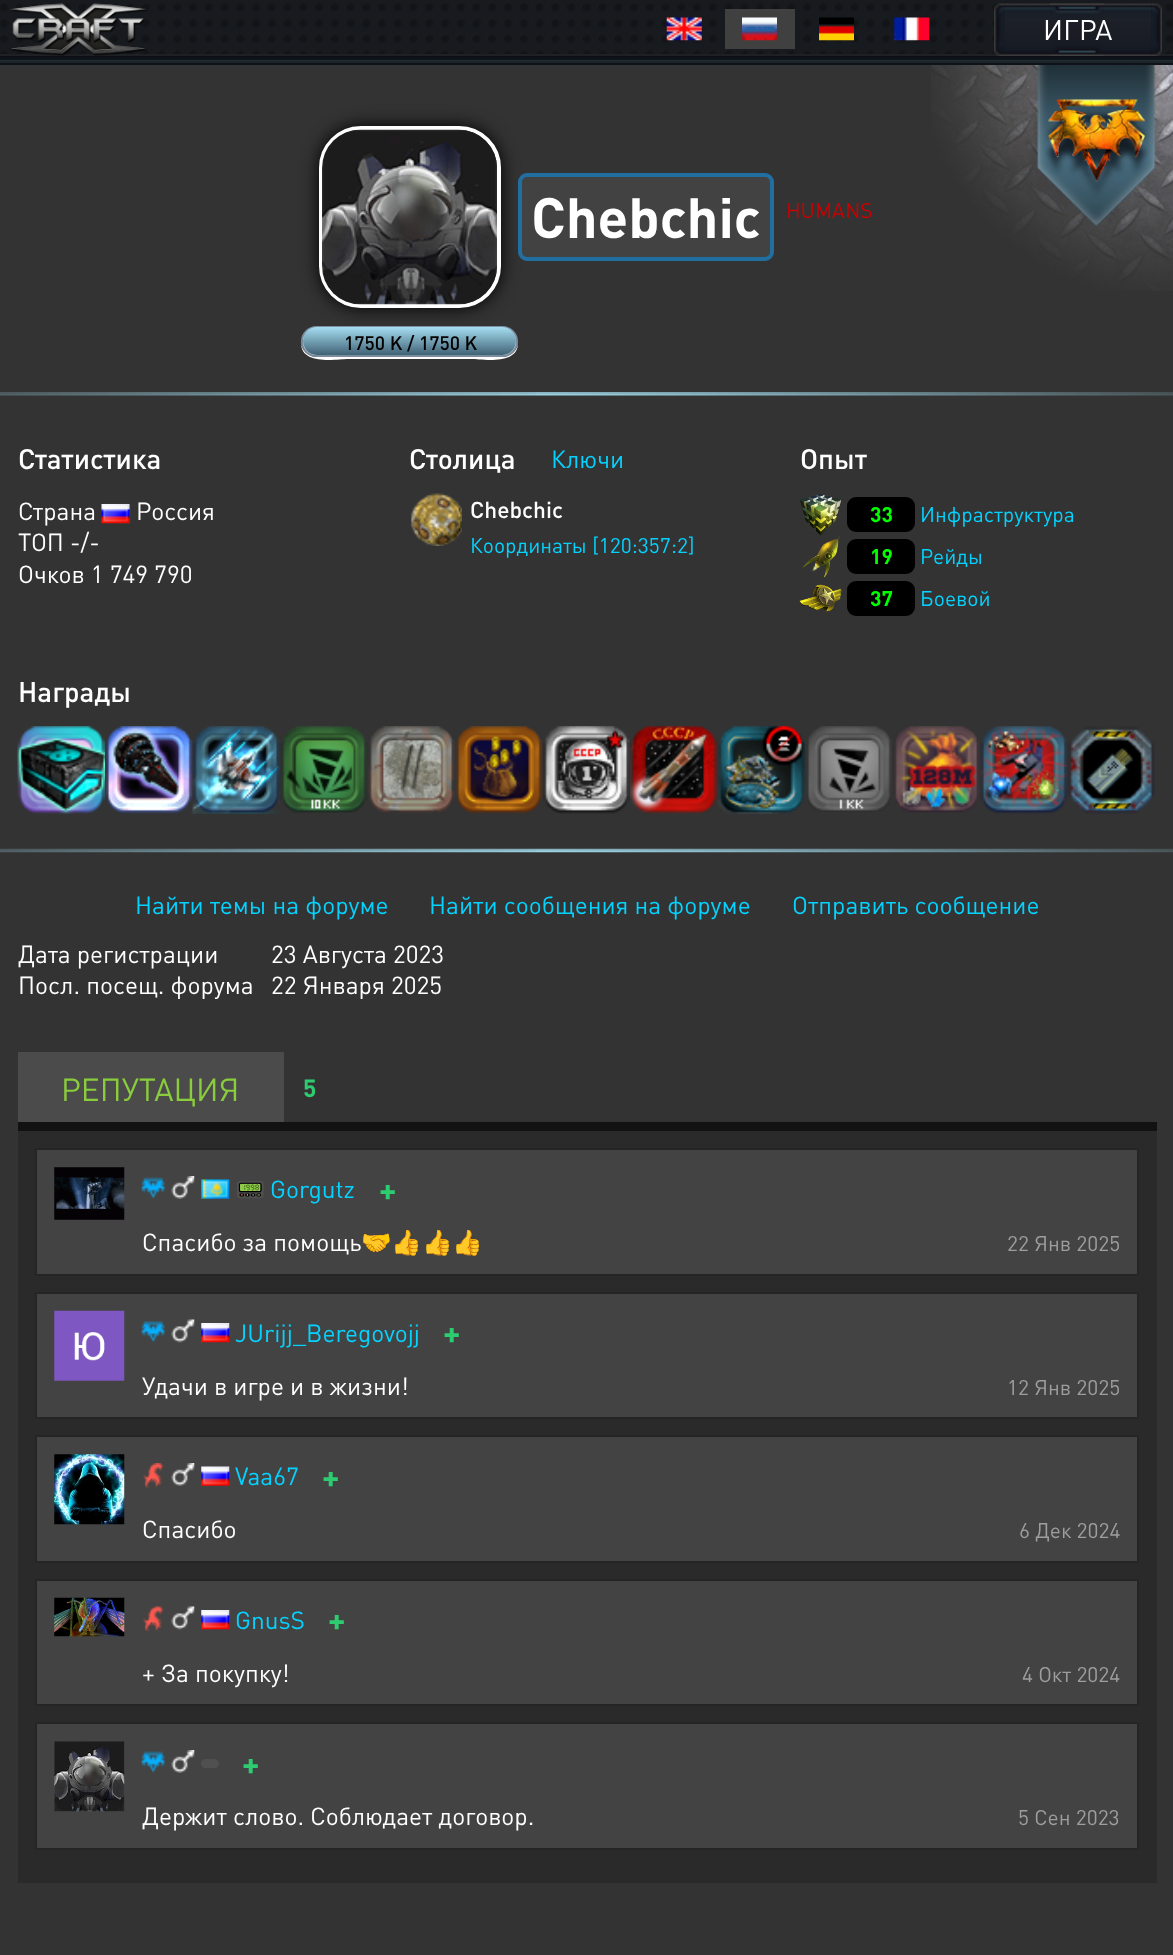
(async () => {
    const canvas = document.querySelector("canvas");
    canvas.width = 1173;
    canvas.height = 1955;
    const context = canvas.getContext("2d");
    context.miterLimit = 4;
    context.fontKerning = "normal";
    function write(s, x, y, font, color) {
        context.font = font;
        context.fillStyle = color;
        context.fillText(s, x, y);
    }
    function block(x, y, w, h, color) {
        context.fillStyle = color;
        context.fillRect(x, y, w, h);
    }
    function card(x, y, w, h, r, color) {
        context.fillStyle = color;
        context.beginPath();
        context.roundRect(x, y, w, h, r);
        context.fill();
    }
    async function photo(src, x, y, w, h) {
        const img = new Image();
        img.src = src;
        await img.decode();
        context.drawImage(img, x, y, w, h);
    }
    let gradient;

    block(0, 0, 1173, 1955, "rgb(51, 51, 51)");
    block(0, 54, 1173, 2, "rgb(30, 32, 35)");
    await photo("media/1.png", 0, 0, 1173, 54);
    block(0, 56, 1173, 2, "rgb(12, 16, 20)");
    block(0, 58, 1173, 2, "rgb(16, 21, 26)");
    block(0, 60, 1173, 1, "rgb(31, 46, 52)");
    block(0, 61, 1173, 2, "rgb(29, 37, 43)");
    block(0, 63, 1173, 2, "rgb(14, 19, 24)");
    await photo("media/2.png", 9, 3, 138, 53);
    await photo("media/3.png", 666, 17, 36, 24);
    block(725, 9, 70, 40, "rgb(64, 64, 64)");
    await photo("media/4.png", 742, 17, 35, 24);
    await photo("media/5.png", 819, 17, 35, 24);
    await photo("media/6.png", 894, 17, 36, 24);
    await photo("media/7.png", 1004, 3, 148, 53);
    await photo("media/9.png", 1050, 3, 54, 53);
    write("ИГРА", 1043, 40, "28px DIN", "rgb(255, 255, 255)");
    await photo("media/8.png", 994, 3, 168, 53);
    await photo("media/10.png", 931, 65, 242, 226);
    context.fillStyle = "rgb(0, 0, 0)";
    context.filter = "blur(9px)";
    context.beginPath();
    context.roundRect(319, 126, 182, 182, 42);
    context.fill();
    context.filter = "none";
    card(518, 173, 256, 88, 9, "rgb(66, 66, 66)");
    context.beginPath();
    context.roundRect(520, 175, 252, 84, 7);
    context.strokeStyle = "rgba(0, 153, 255, 0.5)";
    context.lineWidth = 4;
    context.stroke();
    write("Chebchic", 531, 238, "bold 56px DIN", "rgb(255, 255, 255)");
    write("HUMANS", 786, 218, "21px DIN", "rgb(204, 0, 0)");
    context.beginPath();
    context.roundRect(321, 128, 178, 178, 40);
    context.strokeStyle = "rgb(255, 255, 255)";
    context.stroke();
    await photo("media/11.png", 322, 129, 175, 176);
    context.fillStyle = "rgb(255, 255, 255)";
    context.beginPath();
    context.moveTo(301, 342);
    context.bezierCurveTo(300, 366, 337, 359, 348, 359);
    context.lineTo(471, 359);
    context.bezierCurveTo(482, 359, 519, 366, 518, 342);
    context.bezierCurveTo(518, 350, 511, 357, 502, 357);
    context.lineTo(317, 357);
    context.bezierCurveTo(308, 357, 301, 350, 301, 342);
    context.closePath();
    context.fill();
    context.beginPath();
    context.roundRect(302, 327, 215, 29, 14.5);
    context.fill();
    context.strokeStyle = "rgb(123, 142, 160)";
    context.lineWidth = 2;
    context.stroke();
    gradient = context.createLinearGradient(410, 327, 410, 355);
    gradient.addColorStop(0, "rgb(166, 222, 242)");
    gradient.addColorStop(1, "rgb(65, 98, 117)");
    context.fillStyle = gradient;
    context.beginPath();
    context.roundRect(303, 327, 213, 28, 14);
    context.fill();
    write("1750 K / 1750 K", 344, 350, "500 19.25px DIN", "rgb(0, 0, 0)");
    await photo("media/12.png", 0, 392, 1173, 4);
    write("Статистика", 18, 469, "500 28px DIN", "rgb(255, 255, 255)");
    write("Страна", 18, 520, "24.5px DIN", "rgb(255, 255, 255)");
    context.fillStyle = "rgb(64, 64, 64)";
    context.filter = "blur(1px)";
    context.beginPath();
    context.rect(102, 504, 28, 19);
    context.fill();
    context.filter = "none";
    await photo("media/13.png", 101, 504, 29, 20);
    write("Россия", 136, 520, "24.5px DIN", "rgb(255, 255, 255)");
    write("ТОП -/-", 18, 551, "24.5px DIN", "rgb(255, 255, 255)");
    write("Очков 1 749 790", 18, 583, "24.5px DIN", "rgb(255, 255, 255)");
    write("Столица", 409, 469, "500 28px DIN", "rgb(255, 255, 255)");
    write("Ключи", 551, 468, "24.5px DIN", "rgb(5, 211, 255)");
    await photo("media/14.png", 410, 493, 52, 53);
    write("Chebchic", 470, 518, "500 22.75px DIN", "rgb(255, 255, 255)");
    write("Координаты [120:357:2]", 470, 553, "21px DIN", "rgb(5, 211, 255)");
    write("Опыт", 800, 469, "500 28px DIN", "rgb(255, 255, 255)");
    await photo("media/15.png", 799, 494, 42, 42);
    card(847, 497, 68, 35, 9, "rgb(0, 0, 0)");
    write("33", 870, 522, "bold 21px DIN", "rgb(0, 255, 0)");
    write("Инфраструктура", 920, 522, "21px DIN", "rgb(5, 211, 255)");
    await photo("media/16.png", 802, 535, 39, 43);
    card(847, 539, 68, 35, 9, "rgb(0, 0, 0)");
    write("19", 870, 564, "bold 21px DIN", "rgb(0, 255, 0)");
    write("Рейды", 920, 564, "21px DIN", "rgb(5, 211, 255)");
    await photo("media/17.png", 799, 584, 43, 28);
    card(847, 581, 68, 35, 9, "rgb(0, 0, 0)");
    write("37", 870, 606, "bold 21px DIN", "rgb(0, 255, 0)");
    write("Боевой", 920, 606, "21px DIN", "rgb(5, 211, 255)");
    write("Награды", 18, 702, "500 28px DIN", "rgb(255, 255, 255)");
    await photo("media/18.png", 17, 726, 88, 88);
    await photo("media/19.png", 105, 726, 88, 88);
    await photo("media/20.png", 192, 726, 88, 88);
    await photo("media/21.png", 280, 726, 88, 87);
    await photo("media/22.png", 367, 726, 88, 87);
    await photo("media/23.png", 455, 726, 88, 88);
    await photo("media/24.png", 542, 726, 88, 88);
    await photo("media/25.png", 630, 726, 88, 88);
    await photo("media/26.png", 717, 726, 88, 88);
    await photo("media/27.png", 807, 726, 85, 86);
    await photo("media/28.png", 893, 726, 87, 87);
    await photo("media/29.png", 980, 726, 88, 88);
    await photo("media/30.png", 1067, 726, 88, 88);
    await photo("media/31.png", 0, 848, 1173, 5);
    write("Найти темы на форуме", 135, 914, "24.5px DIN", "rgb(5, 211, 255)");
    write("Найти сообщения на форуме", 429, 914, "24.5px DIN", "rgb(5, 211, 255)");
    write("Отправить сообщение", 792, 914, "24.5px DIN", "rgb(5, 211, 255)");
    write("Дата регистрации", 18, 963, "24.5px DIN", "rgb(255, 255, 255)");
    write("23 Августа 2023", 271, 963, "24.5px DIN", "rgb(255, 255, 255)");
    context.save();
    context.beginPath();
    context.rect(0, 65, 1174, 934);
    context.clip();
    write("Посл. посещ. форума", 18, 994, "24.5px DIN", "rgb(255, 255, 255)");
    write("22 Января 2025", 271, 994, "24.5px DIN", "rgb(255, 255, 255)");
    context.restore();
    block(18, 1052, 266, 70, "rgb(75, 75, 75)");
    write("РЕПУТАЦИЯ", 61, 1101, "31.5px DIN", "rgb(138, 205, 60)");
    write("5", 303, 1097, "bold 24.5px DIN", "rgb(46, 204, 113)");
    block(18, 1131, 1139, 752, "rgb(42, 42, 42)");
    block(18, 1122, 1139, 9, "rgb(18, 18, 18)");
    context.fillStyle = "rgb(67, 67, 67)";
    context.beginPath();
    context.rect(36, 1149, 1102, 126);
    context.fill();
    context.strokeStyle = "rgb(37, 37, 37)";
    context.stroke();
    await photo("media/32.png", 54, 1167, 71, 53);
    await photo("media/33.png", 141, 1177, 24, 22);
    await photo("media/34.png", 171, 1176, 24, 23);
    await photo("media/35.png", 201, 1179, 29, 20);
    write("📟", 235, 1198, "24.5px Noto Color Emoji", "rgb(255, 255, 255)");
    write("Gorgutz", 270, 1198, "24.5px DIN", "rgb(5, 211, 255)");
    write("+", 379, 1201, "bold 32px DIN", "rgb(46, 204, 113)");
    write("Спасибо за помощь", 142, 1251, "24.5px DIN", "rgb(255, 255, 255)");
    write("🤝👍👍👍", 361, 1251, "24.5px Noto Color Emoji", "rgb(255, 255, 255)");
    write("22 Янв 2025", 1007, 1251, "21px DIN", "rgb(158, 158, 158)");
    context.fillStyle = "rgb(67, 67, 67)";
    context.beginPath();
    context.rect(36, 1293, 1102, 125);
    context.fill();
    context.stroke();
    await photo("media/36.png", 54, 1310, 71, 71);
    await photo("media/37.png", 141, 1321, 24, 22);
    await photo("media/38.png", 171, 1319, 24, 24);
    await photo("media/39.png", 201, 1323, 29, 20);
    write("JUrijj_Beregovojj", 235, 1342, "24.5px DIN", "rgb(5, 211, 255)");
    write("+", 443, 1344, "bold 32px DIN", "rgb(46, 204, 113)");
    write("Удачи в игре и в жизни!", 142, 1395, "24.5px DIN", "rgb(255, 255, 255)");
    write("12 Янв 2025", 1007, 1395, "21px DIN", "rgb(158, 158, 158)");
    context.fillStyle = "rgb(67, 67, 67)";
    context.beginPath();
    context.rect(36, 1436, 1102, 126);
    context.fill();
    context.stroke();
    await photo("media/40.png", 54, 1454, 71, 71);
    await photo("media/41.png", 143, 1463, 21, 25);
    await photo("media/34.png", 171, 1463, 24, 23);
    await photo("media/42.png", 201, 1466, 29, 20);
    write("Vaa67", 235, 1485, "24.5px DIN", "rgb(5, 211, 255)");
    write("+", 322, 1488, "bold 32px DIN", "rgb(46, 204, 113)");
    write("Спасибо", 142, 1538, "24.5px DIN", "rgb(255, 255, 255)");
    write("6 Дек 2024", 1019, 1538, "21px DIN", "rgb(158, 158, 158)");
    context.fillStyle = "rgb(67, 67, 67)";
    context.beginPath();
    context.rect(36, 1580, 1102, 125);
    context.fill();
    context.stroke();
    await photo("media/43.png", 54, 1597, 71, 40);
    await photo("media/44.png", 143, 1606, 21, 25);
    await photo("media/38.png", 171, 1606, 24, 24);
    await photo("media/39.png", 201, 1610, 29, 20);
    write("GnusS", 235, 1629, "24.5px DIN", "rgb(5, 211, 255)");
    write("+", 328, 1631, "bold 32px DIN", "rgb(46, 204, 113)");
    write("+ За покупку!", 142, 1682, "24.5px DIN", "rgb(255, 255, 255)");
    write("4 Окт 2024", 1022, 1682, "21px DIN", "rgb(158, 158, 158)");
    context.fillStyle = "rgb(67, 67, 67)";
    context.beginPath();
    context.rect(36, 1723, 1102, 126);
    context.fill();
    context.stroke();
    await photo("media/45.png", 54, 1741, 71, 71);
    await photo("media/33.png", 141, 1751, 24, 22);
    await photo("media/34.png", 171, 1750, 24, 23);
    card(201, 1759, 18, 9, 4.5, "rgb(80, 80, 80)");
    write("+", 242, 1775, "bold 32px DIN", "rgb(46, 204, 113)");
    write("Держит слово. Соблюдает договор.", 142, 1825, "24.5px DIN", "rgb(255, 255, 255)");
    write("5 Сен 2023", 1018, 1825, "21px DIN", "rgb(158, 158, 158)");
})();
